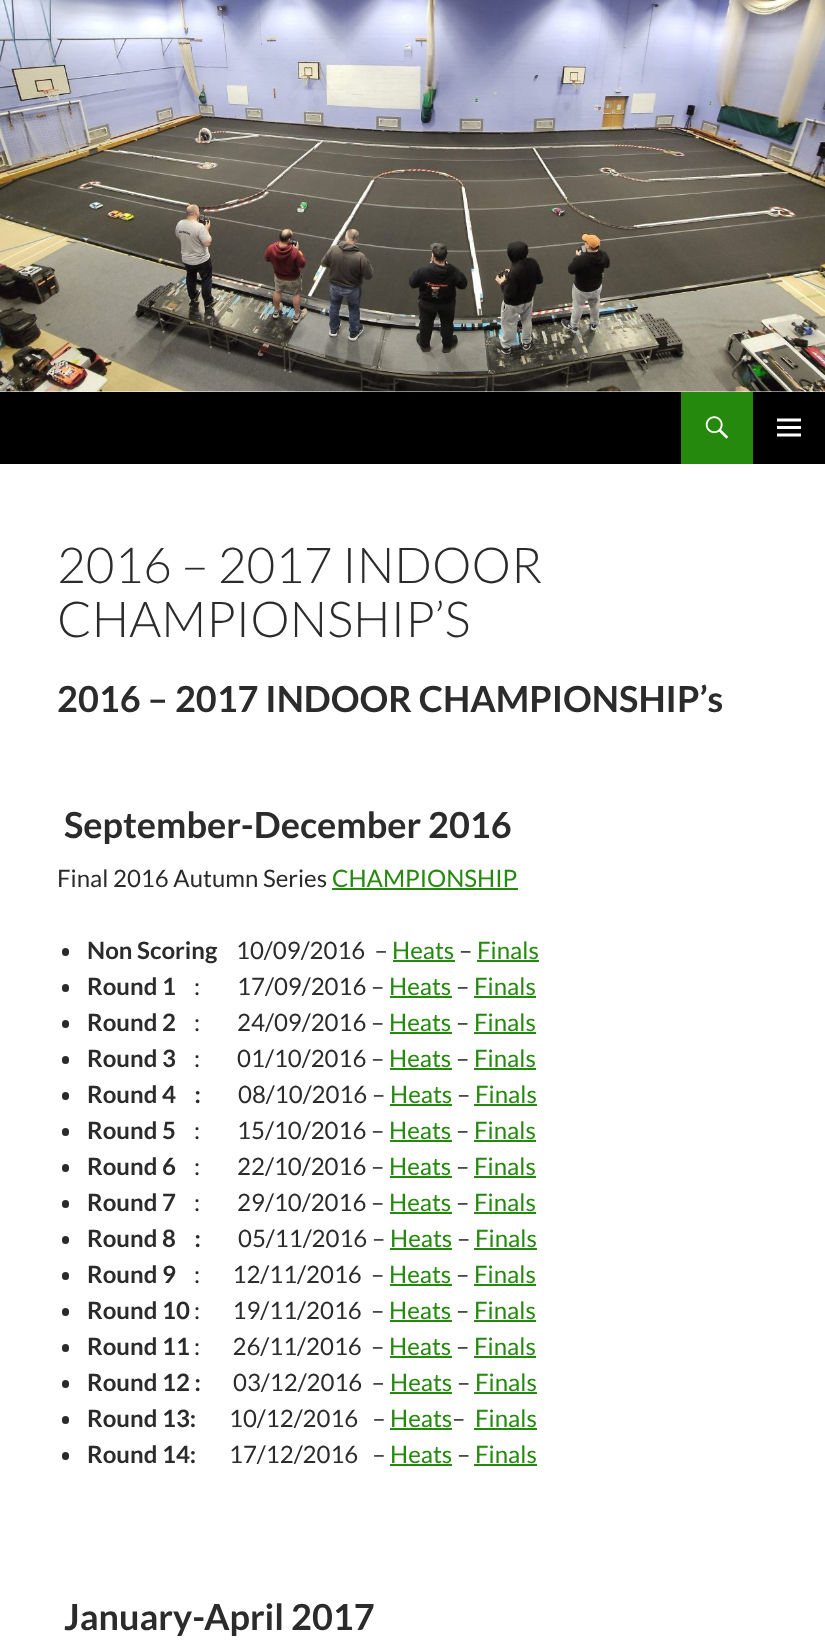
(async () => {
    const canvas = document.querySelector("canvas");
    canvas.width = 825;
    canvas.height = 1647;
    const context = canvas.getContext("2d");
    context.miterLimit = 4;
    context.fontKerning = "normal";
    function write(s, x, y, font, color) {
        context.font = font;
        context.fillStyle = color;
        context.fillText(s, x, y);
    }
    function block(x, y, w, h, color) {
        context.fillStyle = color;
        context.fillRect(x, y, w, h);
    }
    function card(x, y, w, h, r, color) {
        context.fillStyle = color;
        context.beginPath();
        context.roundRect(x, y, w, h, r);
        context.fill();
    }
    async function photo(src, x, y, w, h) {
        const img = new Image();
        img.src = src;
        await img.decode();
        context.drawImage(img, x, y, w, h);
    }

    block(0, 0, 825, 1647, "rgb(255, 255, 255)");
    await photo("media/1.png", 0, 0, 825, 392);
    block(0, 392, 825, 72, "rgb(0, 0, 0)");
    block(681, 392, 72, 72, "rgb(36, 137, 13)");
    await photo("media/2.png", 705, 416, 24, 23);
    await photo("media/3.png", 777, 418, 24, 19);
    write("2016 – 2017 INDOOR", 57, 583, "300 49.5px Lato", "rgb(43, 43, 43)");
    write("CHAMPIONSHIP’S", 57, 637, "300 49.5px Lato", "rgb(43, 43, 43)");
    write("2016 – 2017 INDOOR CHAMPIONSHIP’s", 57, 712, "bold 36px Lato", "rgb(43, 43, 43)");
    write("September-December 2016", 64, 838, "bold 36px Lato", "rgb(43, 43, 43)");
    write("Final 2016 Autumn Series", 57, 887, "24px Lato", "rgb(43, 43, 43)");
    write("CHAMPIONSHIP", 332, 887, "24px Lato", "rgb(36, 137, 13)");
    block(332, 888, 186, 2, "rgb(36, 137, 13)");
    card(62, 948, 7, 8, 3.5, "rgb(43, 43, 43)");
    write("Non Scoring", 87, 959, "bold 24px Lato", "rgb(43, 43, 43)");
    write("10/09/2016  –", 236, 959, "24px Lato", "rgb(43, 43, 43)");
    write("Heats", 392, 959, "24px Lato", "rgb(36, 137, 13)");
    block(393, 960, 62, 2, "rgb(36, 137, 13)");
    write("–", 459, 959, "24px Lato", "rgb(43, 43, 43)");
    write("Finals", 477, 959, "24px Lato", "rgb(36, 137, 13)");
    block(477, 960, 62, 2, "rgb(36, 137, 13)");
    card(62, 984, 7, 8, 3.5, "rgb(43, 43, 43)");
    write("Round 1", 87, 995, "bold 24px Lato", "rgb(43, 43, 43)");
    write(":        17/09/2016 –", 194, 995, "24px Lato", "rgb(43, 43, 43)");
    write("Heats", 389, 995, "24px Lato", "rgb(36, 137, 13)");
    block(390, 996, 62, 2, "rgb(36, 137, 13)");
    write("–", 456, 995, "24px Lato", "rgb(43, 43, 43)");
    write("Finals", 474, 995, "24px Lato", "rgb(36, 137, 13)");
    block(474, 996, 62, 2, "rgb(36, 137, 13)");
    card(62, 1020, 7, 8, 3.5, "rgb(43, 43, 43)");
    write("Round 2", 87, 1031, "bold 24px Lato", "rgb(43, 43, 43)");
    write(":        24/09/2016 –", 194, 1031, "24px Lato", "rgb(43, 43, 43)");
    write("Heats", 389, 1031, "24px Lato", "rgb(36, 137, 13)");
    block(390, 1032, 62, 2, "rgb(36, 137, 13)");
    write("–", 456, 1031, "24px Lato", "rgb(43, 43, 43)");
    write("Finals", 474, 1031, "24px Lato", "rgb(36, 137, 13)");
    block(474, 1032, 62, 2, "rgb(36, 137, 13)");
    card(62, 1056, 7, 8, 3.5, "rgb(43, 43, 43)");
    write("Round 3", 87, 1067, "bold 24px Lato", "rgb(43, 43, 43)");
    write(":        01/10/2016 –", 194, 1067, "24px Lato", "rgb(43, 43, 43)");
    write("Heats", 389, 1067, "24px Lato", "rgb(36, 137, 13)");
    block(390, 1068, 62, 2, "rgb(36, 137, 13)");
    write("–", 456, 1067, "24px Lato", "rgb(43, 43, 43)");
    write("Finals", 474, 1067, "24px Lato", "rgb(36, 137, 13)");
    block(474, 1068, 62, 2, "rgb(36, 137, 13)");
    card(62, 1092, 7, 8, 3.5, "rgb(43, 43, 43)");
    write("Round 4    :", 87, 1103, "bold 24px Lato", "rgb(43, 43, 43)");
    write("08/10/2016 –", 238, 1103, "24px Lato", "rgb(43, 43, 43)");
    write("Heats", 390, 1103, "24px Lato", "rgb(36, 137, 13)");
    block(390, 1104, 62, 2, "rgb(36, 137, 13)");
    write("–", 457, 1103, "24px Lato", "rgb(43, 43, 43)");
    write("Finals", 475, 1103, "24px Lato", "rgb(36, 137, 13)");
    block(474, 1104, 63, 2, "rgb(36, 137, 13)");
    card(62, 1128, 7, 8, 3.5, "rgb(43, 43, 43)");
    write("Round 5", 87, 1139, "bold 24px Lato", "rgb(43, 43, 43)");
    write(":        15/10/2016 –", 194, 1139, "24px Lato", "rgb(43, 43, 43)");
    write("Heats", 389, 1139, "24px Lato", "rgb(36, 137, 13)");
    block(390, 1140, 62, 2, "rgb(36, 137, 13)");
    write("–", 456, 1139, "24px Lato", "rgb(43, 43, 43)");
    write("Finals", 474, 1139, "24px Lato", "rgb(36, 137, 13)");
    block(474, 1140, 62, 2, "rgb(36, 137, 13)");
    card(62, 1164, 7, 8, 3.5, "rgb(43, 43, 43)");
    write("Round 6", 87, 1175, "bold 24px Lato", "rgb(43, 43, 43)");
    write(":        22/10/2016 –", 194, 1175, "24px Lato", "rgb(43, 43, 43)");
    write("Heats", 389, 1175, "24px Lato", "rgb(36, 137, 13)");
    block(390, 1176, 62, 2, "rgb(36, 137, 13)");
    write("–", 456, 1175, "24px Lato", "rgb(43, 43, 43)");
    write("Finals", 474, 1175, "24px Lato", "rgb(36, 137, 13)");
    block(474, 1176, 62, 2, "rgb(36, 137, 13)");
    card(62, 1200, 7, 8, 3.5, "rgb(43, 43, 43)");
    write("Round 7", 87, 1211, "bold 24px Lato", "rgb(43, 43, 43)");
    write(":        29/10/2016 –", 194, 1211, "24px Lato", "rgb(43, 43, 43)");
    write("Heats", 389, 1211, "24px Lato", "rgb(36, 137, 13)");
    block(390, 1212, 62, 2, "rgb(36, 137, 13)");
    write("–", 456, 1211, "24px Lato", "rgb(43, 43, 43)");
    write("Finals", 474, 1211, "24px Lato", "rgb(36, 137, 13)");
    block(474, 1212, 62, 2, "rgb(36, 137, 13)");
    card(62, 1236, 7, 8, 3.5, "rgb(43, 43, 43)");
    write("Round 8    :", 87, 1247, "bold 24px Lato", "rgb(43, 43, 43)");
    write("05/11/2016 –", 238, 1247, "24px Lato", "rgb(43, 43, 43)");
    write("Heats", 390, 1247, "24px Lato", "rgb(36, 137, 13)");
    block(390, 1248, 62, 2, "rgb(36, 137, 13)");
    write("–", 457, 1247, "24px Lato", "rgb(43, 43, 43)");
    write("Finals", 475, 1247, "24px Lato", "rgb(36, 137, 13)");
    block(474, 1248, 63, 2, "rgb(36, 137, 13)");
    card(62, 1272, 7, 8, 3.5, "rgb(43, 43, 43)");
    write("Round 9", 87, 1283, "bold 24px Lato", "rgb(43, 43, 43)");
    write(":       12/11/2016  –", 194, 1283, "24px Lato", "rgb(43, 43, 43)");
    write("Heats", 389, 1283, "24px Lato", "rgb(36, 137, 13)");
    block(390, 1284, 62, 2, "rgb(36, 137, 13)");
    write("–", 456, 1283, "24px Lato", "rgb(43, 43, 43)");
    write("Finals", 474, 1283, "24px Lato", "rgb(36, 137, 13)");
    block(474, 1284, 62, 2, "rgb(36, 137, 13)");
    card(62, 1308, 7, 8, 3.5, "rgb(43, 43, 43)");
    write("Round 10", 87, 1319, "bold 24px Lato", "rgb(43, 43, 43)");
    write(":       19/11/2016  –", 194, 1319, "24px Lato", "rgb(43, 43, 43)");
    write("Heats", 389, 1319, "24px Lato", "rgb(36, 137, 13)");
    block(390, 1320, 62, 2, "rgb(36, 137, 13)");
    write("–", 456, 1319, "24px Lato", "rgb(43, 43, 43)");
    write("Finals", 474, 1319, "24px Lato", "rgb(36, 137, 13)");
    block(474, 1320, 62, 2, "rgb(36, 137, 13)");
    card(62, 1344, 7, 8, 3.5, "rgb(43, 43, 43)");
    write("Round 11", 87, 1355, "bold 24px Lato", "rgb(43, 43, 43)");
    write(":       26/11/2016  –", 194, 1355, "24px Lato", "rgb(43, 43, 43)");
    write("Heats", 389, 1355, "24px Lato", "rgb(36, 137, 13)");
    block(390, 1356, 62, 2, "rgb(36, 137, 13)");
    write("–", 456, 1355, "24px Lato", "rgb(43, 43, 43)");
    write("Finals", 474, 1355, "24px Lato", "rgb(36, 137, 13)");
    block(474, 1356, 62, 2, "rgb(36, 137, 13)");
    card(62, 1380, 7, 8, 3.5, "rgb(43, 43, 43)");
    write("Round 12 :", 87, 1391, "bold 24px Lato", "rgb(43, 43, 43)");
    write("03/12/2016  –", 233, 1391, "24px Lato", "rgb(43, 43, 43)");
    write("Heats", 390, 1391, "24px Lato", "rgb(36, 137, 13)");
    block(390, 1392, 62, 2, "rgb(36, 137, 13)");
    write("–", 457, 1391, "24px Lato", "rgb(43, 43, 43)");
    write("Finals", 475, 1391, "24px Lato", "rgb(36, 137, 13)");
    block(474, 1392, 63, 2, "rgb(36, 137, 13)");
    card(62, 1416, 7, 8, 3.5, "rgb(43, 43, 43)");
    write("Round 13:", 87, 1427, "bold 24px Lato", "rgb(43, 43, 43)");
    write("10/12/2016   –", 229, 1427, "24px Lato", "rgb(43, 43, 43)");
    write("Heats", 390, 1427, "24px Lato", "rgb(36, 137, 13)");
    block(390, 1428, 62, 2, "rgb(36, 137, 13)");
    write("–", 452, 1427, "24px Lato", "rgb(43, 43, 43)");
    write("Finals", 475, 1427, "24px Lato", "rgb(36, 137, 13)");
    block(474, 1428, 63, 2, "rgb(36, 137, 13)");
    card(62, 1452, 7, 8, 3.5, "rgb(43, 43, 43)");
    write("Round 14:", 87, 1463, "bold 24px Lato", "rgb(43, 43, 43)");
    write("17/12/2016   –", 229, 1463, "24px Lato", "rgb(43, 43, 43)");
    write("Heats", 390, 1463, "24px Lato", "rgb(36, 137, 13)");
    block(390, 1464, 62, 2, "rgb(36, 137, 13)");
    write("–", 457, 1463, "24px Lato", "rgb(43, 43, 43)");
    write("Finals", 475, 1463, "24px Lato", "rgb(36, 137, 13)");
    block(474, 1464, 63, 2, "rgb(36, 137, 13)");
    write("January-April 2017", 64, 1630, "bold 36px Lato", "rgb(43, 43, 43)");
})();
